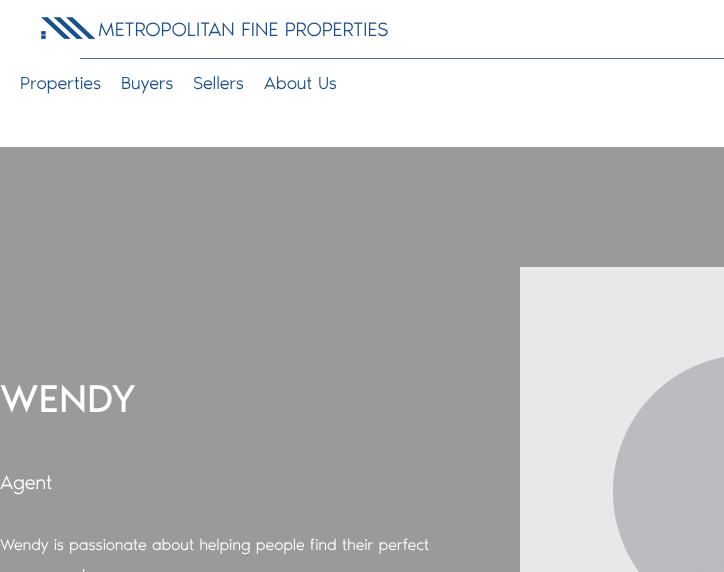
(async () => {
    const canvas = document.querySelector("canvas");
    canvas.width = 724;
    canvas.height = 572;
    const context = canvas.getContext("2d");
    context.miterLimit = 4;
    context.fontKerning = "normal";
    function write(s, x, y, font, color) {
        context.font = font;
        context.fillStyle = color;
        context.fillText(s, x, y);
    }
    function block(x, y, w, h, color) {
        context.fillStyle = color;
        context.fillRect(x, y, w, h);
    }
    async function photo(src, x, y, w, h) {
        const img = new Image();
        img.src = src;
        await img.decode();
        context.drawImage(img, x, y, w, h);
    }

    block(0, 0, 724, 572, "rgb(255, 255, 255)");
    await photo("media/1.png", 41, 16, 55, 24);
    write("METROPOLITAN FINE PROPERTIES", 98, 36, "300 20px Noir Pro", "rgb(29, 78, 137)");
    block(80, 58, 644, 1, "rgb(82, 109, 156)");
    write("Properties", 20, 89, "300 18px Noir Pro", "rgb(29, 78, 137)");
    write("Buyers", 121, 89, "300 18px Noir Pro", "rgb(29, 78, 137)");
    write("Sellers", 193, 89, "300 18px Noir Pro", "rgb(29, 78, 137)");
    write("About Us", 264, 89, "300 18px Noir Pro", "rgb(29, 78, 137)");
    block(0, 147, 724, 425, "rgb(154, 154, 154)");
    write("WENDY", 0, 412, "40px Noir Pro", "rgb(255, 255, 255)");
    write("Agent", 0, 489, "300 20px Noir Pro", "rgb(255, 255, 255)");
    write("Wendy is passionate about helping people find their perfect", 0, 550, "300 16px Noir Pro", "rgb(255, 255, 255)");
    write("'", 82, 580, "300 16px Noir Pro", "rgb(255, 255, 255)");
    await photo("media/2.png", 520, 267, 204, 305);
})();
